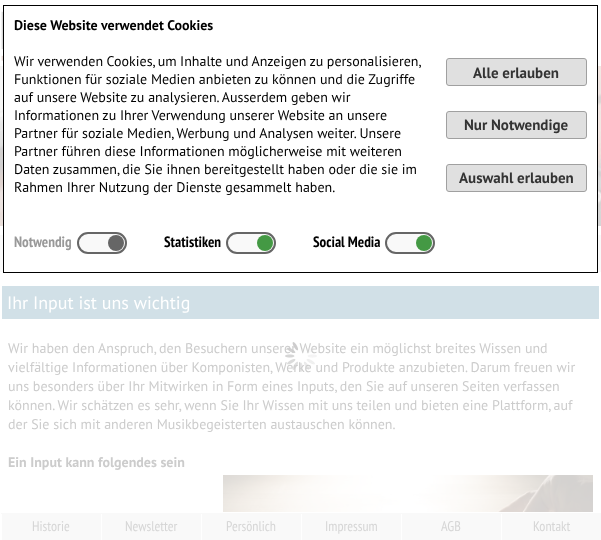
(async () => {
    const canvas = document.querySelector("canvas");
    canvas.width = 601;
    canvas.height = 540;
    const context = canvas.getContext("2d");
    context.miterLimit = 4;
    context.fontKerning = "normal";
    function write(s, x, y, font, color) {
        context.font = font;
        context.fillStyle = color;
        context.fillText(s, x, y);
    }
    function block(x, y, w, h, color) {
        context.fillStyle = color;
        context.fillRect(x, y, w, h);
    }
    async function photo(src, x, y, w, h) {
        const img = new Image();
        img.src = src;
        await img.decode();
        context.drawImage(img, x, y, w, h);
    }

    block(0, 0, 601, 540, "rgb(255, 255, 255)");
    block(0, 235, 601, 37, "rgb(249, 249, 249)");
    block(4, 235, 593, 37, "rgb(255, 255, 255)");
    context.strokeStyle = "rgb(0, 0, 0)";
    context.strokeRect(3.5, 5.5, 594, 267);
    write("Diese Website verwendet Cookies", 14, 30, "bold 14px PT Sans", "rgb(0, 0, 0)");
    context.wordSpacing = "-0.25px";
    write("Wir verwenden Cookies, um Inhalte und Anzeigen zu personalisieren,", 14, 66, "14px PT Sans", "rgb(0, 0, 0)");
    context.wordSpacing = "0px";
    write("Funktionen für soziale Medien anbieten zu können und die Zugriffe", 14, 84, "14px PT Sans", "rgb(0, 0, 0)");
    write("auf unsere Website zu analysieren. Ausserdem geben wir", 14, 102, "14px PT Sans", "rgb(0, 0, 0)");
    write("Informationen zu Ihrer Verwendung unserer Website an unsere", 14, 120, "14px PT Sans", "rgb(0, 0, 0)");
    write("Partner für soziale Medien, Werbung und Analysen weiter. Unsere", 14, 138, "14px PT Sans", "rgb(0, 0, 0)");
    write("Partner führen diese Informationen möglicherweise mit weiteren", 14, 156, "14px PT Sans", "rgb(0, 0, 0)");
    write("Daten zusammen, die Sie ihnen bereitgestellt haben oder die sie im", 14, 174, "14px PT Sans", "rgb(0, 0, 0)");
    write("Rahmen Ihrer Nutzung der Dienste gesammelt haben.", 14, 192, "14px PT Sans", "rgb(0, 0, 0)");
    context.fillStyle = "rgb(224, 224, 224)";
    context.beginPath();
    context.roundRect(446.5, 58.5, 140, 27, 2.5);
    context.fill();
    context.strokeStyle = "rgb(160, 160, 160)";
    context.stroke();
    write("Alle erlauben", 473, 78, "bold 15px PT Sans", "rgb(51, 51, 51)");
    context.fillStyle = "rgb(224, 224, 224)";
    context.beginPath();
    context.roundRect(446.5, 111.5, 140, 27, 2.5);
    context.fill();
    context.stroke();
    write("Nur Notwendige", 464, 130, "bold 15px PT Sans", "rgb(51, 51, 51)");
    context.fillStyle = "rgb(224, 224, 224)";
    context.beginPath();
    context.roundRect(446.5, 164.5, 140, 27, 2.5);
    context.fill();
    context.stroke();
    write("Auswahl erlauben", 459, 183, "bold 15px PT Sans", "rgb(51, 51, 51)");
    write("Notwendig", 14, 247, "bold 15px PT Sans Narrow", "rgb(153, 153, 153)");
    context.fillStyle = "rgb(249, 249, 249)";
    context.beginPath();
    context.roundRect(78, 233, 48, 20, 10);
    context.fill();
    context.strokeStyle = "rgb(102, 102, 102)";
    context.lineWidth = 2;
    context.stroke();
    context.fillStyle = "rgb(102, 102, 102)";
    context.beginPath();
    context.arc(116, 243, 8, 0, Math.PI * 2);
    context.fill();
    write("Statistiken", 164, 247, "bold 15px PT Sans Narrow", "rgb(0, 0, 0)");
    context.fillStyle = "rgb(249, 249, 249)";
    context.beginPath();
    context.roundRect(227, 233, 48, 20, 10);
    context.fill();
    context.stroke();
    context.fillStyle = "rgb(68, 153, 68)";
    context.beginPath();
    context.arc(265, 243, 8, 0, Math.PI * 2);
    context.fill();
    write("Social Media", 313, 247, "bold 15px PT Sans Narrow", "rgb(0, 0, 0)");
    context.fillStyle = "rgb(249, 249, 249)";
    context.beginPath();
    context.roundRect(386, 233, 48, 20, 10);
    context.fill();
    context.stroke();
    context.fillStyle = "rgb(68, 153, 68)";
    context.beginPath();
    context.arc(424, 243, 8, 0, Math.PI * 2);
    context.fill();
    await photo("media/1.png", 1, 11, 2, 50);
    await photo("media/2.png", 0, 66, 3, 160);
    await photo("media/3.png", 598, 66, 3, 160);
    block(2, 286, 597, 33, "rgb(209, 224, 231)");
    write("Ihr Input ist uns wichtig", 7, 309, "18px PT Sans", "rgb(255, 255, 255)");
    await photo("media/5.png", 285, 342, 32, 30);
    write("Wir haben den Anspruch, den Besuchern unserer Website ein möglichst breites Wissen und", 8, 353, "14px PT Sans", "rgb(204, 204, 204)");
    write("vielfältige Informationen über Komponisten, Werke und Produkte anzubieten. Darum freuen wir", 8, 372, "14px PT Sans", "rgb(204, 204, 204)");
    write("uns besonders über Ihr Mitwirken in Form eines Inputs, den Sie auf unseren Seiten verfassen", 8, 391, "14px PT Sans", "rgb(204, 204, 204)");
    write("können. Wir schätzen es sehr, wenn Sie Ihr Wissen mit uns teilen und bieten eine Plattform, auf", 8, 410, "14px PT Sans", "rgb(204, 204, 204)");
    write("der Sie sich mit anderen Musikbegeisterten austauschen können.", 8, 429, "14px PT Sans", "rgb(204, 204, 204)");
    write("Ein Input kann folgendes sein", 8, 467, "bold 14px PT Sans", "rgb(204, 204, 204)");
    await photo("media/4.png", 223, 475, 370, 37);
    block(1, 513, 600, 27, "rgb(249, 249, 249)");
    block(1, 514, 1, 26, "rgb(255, 255, 255)");
    write("Historie", 32, 531, "14px PT Sans Narrow", "rgb(214, 214, 214)");
    block(101, 514, 1, 26, "rgb(255, 255, 255)");
    write("Newsletter", 125, 531, "14px PT Sans Narrow", "rgb(214, 214, 214)");
    block(201, 514, 1, 26, "rgb(255, 255, 255)");
    write("Persönlich", 226, 531, "14px PT Sans Narrow", "rgb(214, 214, 214)");
    block(301, 514, 1, 26, "rgb(255, 255, 255)");
    write("Impressum", 325, 531, "14px PT Sans Narrow", "rgb(214, 214, 214)");
    block(401, 514, 1, 26, "rgb(255, 255, 255)");
    write("AGB", 441, 531, "14px PT Sans Narrow", "rgb(214, 214, 214)");
    block(501, 514, 1, 26, "rgb(255, 255, 255)");
    write("Kontakt", 533, 531, "14px PT Sans Narrow", "rgb(214, 214, 214)");
})();
